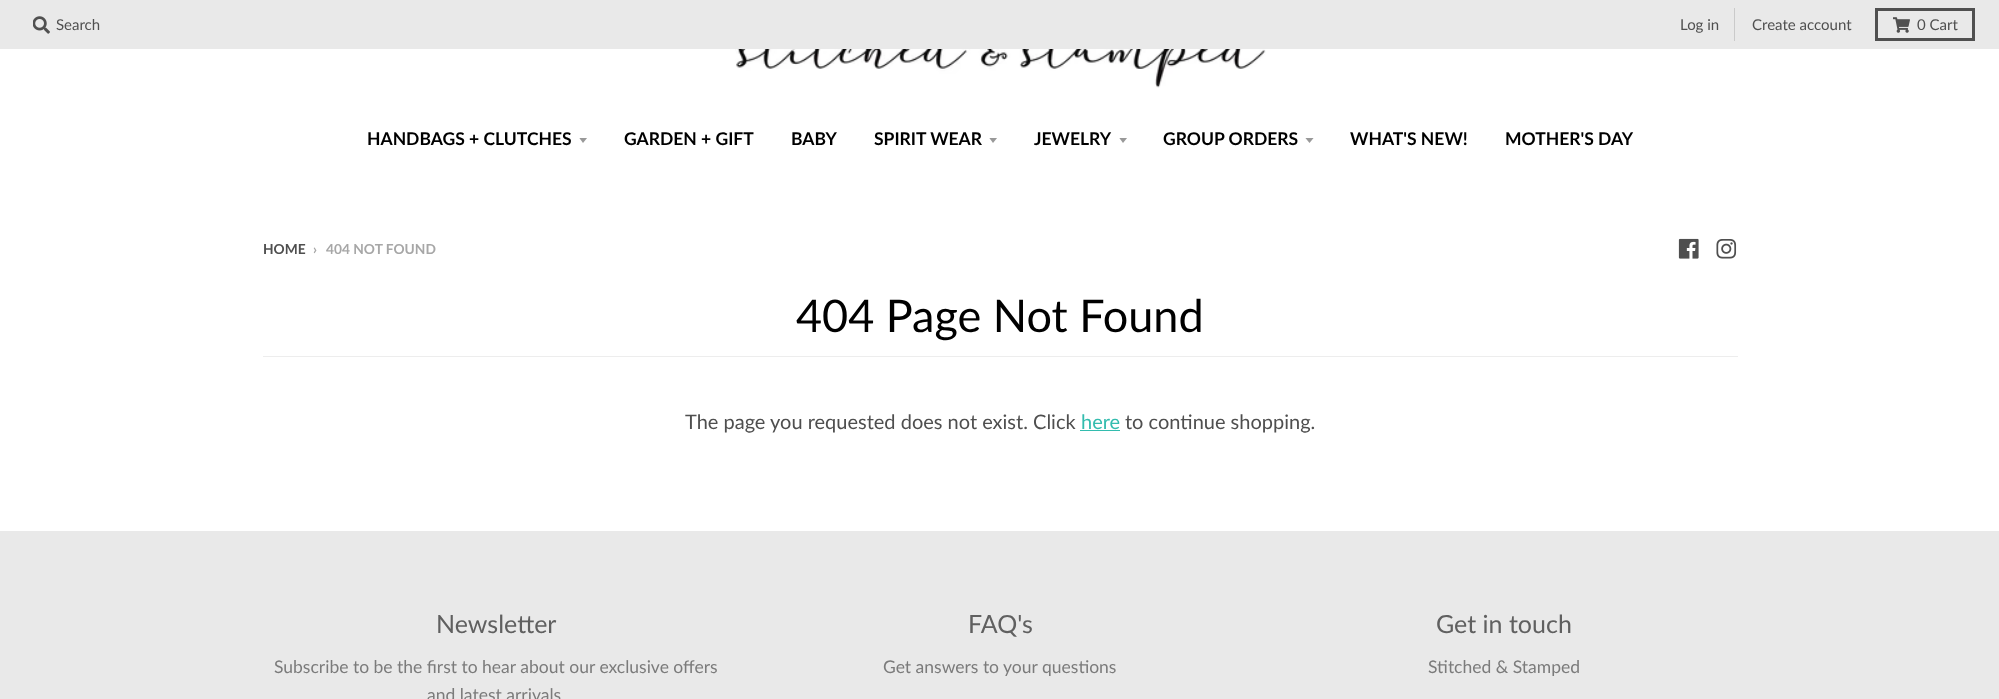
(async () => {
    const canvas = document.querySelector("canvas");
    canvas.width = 1999;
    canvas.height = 699;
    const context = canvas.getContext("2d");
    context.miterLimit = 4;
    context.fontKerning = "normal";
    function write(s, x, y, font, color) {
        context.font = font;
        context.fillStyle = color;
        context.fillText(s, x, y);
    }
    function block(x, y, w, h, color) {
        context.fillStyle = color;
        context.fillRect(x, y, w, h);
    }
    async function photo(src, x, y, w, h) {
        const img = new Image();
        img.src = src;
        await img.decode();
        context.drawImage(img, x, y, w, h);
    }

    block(0, 0, 1999, 699, "rgb(255, 255, 255)");
    block(0, 0, 1999, 49, "rgb(233, 233, 233)");
    await photo("media/1.png", 33, 16, 17, 18);
    write("Search", 56, 30, "15px Lato", "rgb(79, 79, 79)");
    block(1734, 8, 1, 33, "rgb(202, 202, 202)");
    write("Log in", 1680, 30, "15px Lato", "rgb(79, 79, 79)");
    write("Create account", 1752, 30, "15px Lato", "rgb(79, 79, 79)");
    context.strokeStyle = "rgb(80, 80, 80)";
    context.lineWidth = 3;
    context.strokeRect(1876.5, 9.5, 97, 30);
    await photo("media/2.png", 1893, 17, 17, 16);
    write("0 Cart", 1917, 30, "15px Lato", "rgb(79, 79, 79)");
    await photo("media/3.png", 735, 49, 531, 39);
    write("HANDBAGS + CLUTCHES", 367, 145, "bold 17.5px Lato", "rgb(0, 0, 0)");
    context.save();
    context.beginPath();
    context.rect(579, 138, 10, 6);
    context.clip();
    context.fillStyle = "rgb(153, 153, 153)";
    context.beginPath();
    context.moveTo(579, 137.5);
    context.lineTo(583, 143);
    context.lineTo(587.5, 137.5);
    context.closePath();
    context.fill();
    context.restore();
    write("GARDEN + GIFT", 624, 145, "bold 17.5px Lato", "rgb(0, 0, 0)");
    write("BABY", 791, 145, "bold 17.5px Lato", "rgb(0, 0, 0)");
    write("SPIRIT WEAR", 874, 145, "bold 17.5px Lato", "rgb(0, 0, 0)");
    context.save();
    context.beginPath();
    context.rect(989, 138, 10, 6);
    context.clip();
    context.fillStyle = "rgb(153, 153, 153)";
    context.beginPath();
    context.moveTo(989, 137.5);
    context.lineTo(993, 143);
    context.lineTo(997.5, 137.5);
    context.closePath();
    context.fill();
    context.restore();
    write("JEWELRY", 1034, 145, "bold 17.5px Lato", "rgb(0, 0, 0)");
    context.save();
    context.beginPath();
    context.rect(1119, 138, 10, 6);
    context.clip();
    context.fillStyle = "rgb(153, 153, 153)";
    context.beginPath();
    context.moveTo(1119, 137.5);
    context.lineTo(1123, 143);
    context.lineTo(1127.5, 137.5);
    context.closePath();
    context.fill();
    context.restore();
    write("GROUP ORDERS", 1163, 145, "bold 17.5px Lato", "rgb(0, 0, 0)");
    context.save();
    context.beginPath();
    context.rect(1305, 138, 10, 6);
    context.clip();
    context.fillStyle = "rgb(153, 153, 153)";
    context.beginPath();
    context.moveTo(1305, 137.5);
    context.lineTo(1309.5, 143);
    context.lineTo(1314, 137.5);
    context.closePath();
    context.fill();
    context.restore();
    write("WHAT'S NEW!", 1350, 145, "bold 17.5px Lato", "rgb(0, 0, 0)");
    write("MOTHER'S DAY", 1505, 145, "bold 17.5px Lato", "rgb(0, 0, 0)");
    write("HOME", 263, 254, "bold 13.75px Lato", "rgb(79, 79, 79)");
    write("›", 313, 254, "bold 13.75px Lato", "rgb(167, 167, 167)");
    write("404 NOT FOUND", 326, 254, "bold 13.75px Lato", "rgb(167, 167, 167)");
    await photo("media/4.png", 1678, 238, 21, 21);
    await photo("media/5.png", 1716, 239, 21, 20);
    block(263, 356, 1475, 1, "rgb(237, 237, 237)");
    write("404 Page Not Found", 796, 332, "45px Lato", "rgb(0, 0, 0)");
    write("The page you requested does not exist. Click", 685, 429, "20px Lato", "rgb(79, 79, 79)");
    write("here", 1081, 429, "20px Lato", "rgb(51, 188, 174)");
    block(1080, 430, 40, 1, "rgb(51, 188, 174)");
    write("to continue shopping.", 1125, 429, "20px Lato", "rgb(79, 79, 79)");
    block(0, 531, 1999, 168, "rgb(233, 233, 233)");
    write("Newsletter", 436, 633, "25px Lato", "rgb(96, 96, 96)");
    write("Subscribe to be the first to hear about our exclusive offers", 274, 673, "17.5px Lato", "rgb(123, 123, 123)");
    write("and latest arrivals", 427, 701, "17.5px Lato", "rgb(123, 123, 123)");
    write("FAQ's", 968, 633, "25px Lato", "rgb(96, 96, 96)");
    write("Get answers to your questions", 883, 673, "17.5px Lato", "rgb(123, 123, 123)");
    write("Get in touch", 1436, 633, "25px Lato", "rgb(96, 96, 96)");
    write("Stitched & Stamped", 1428, 673, "17.5px Lato", "rgb(123, 123, 123)");
})();
